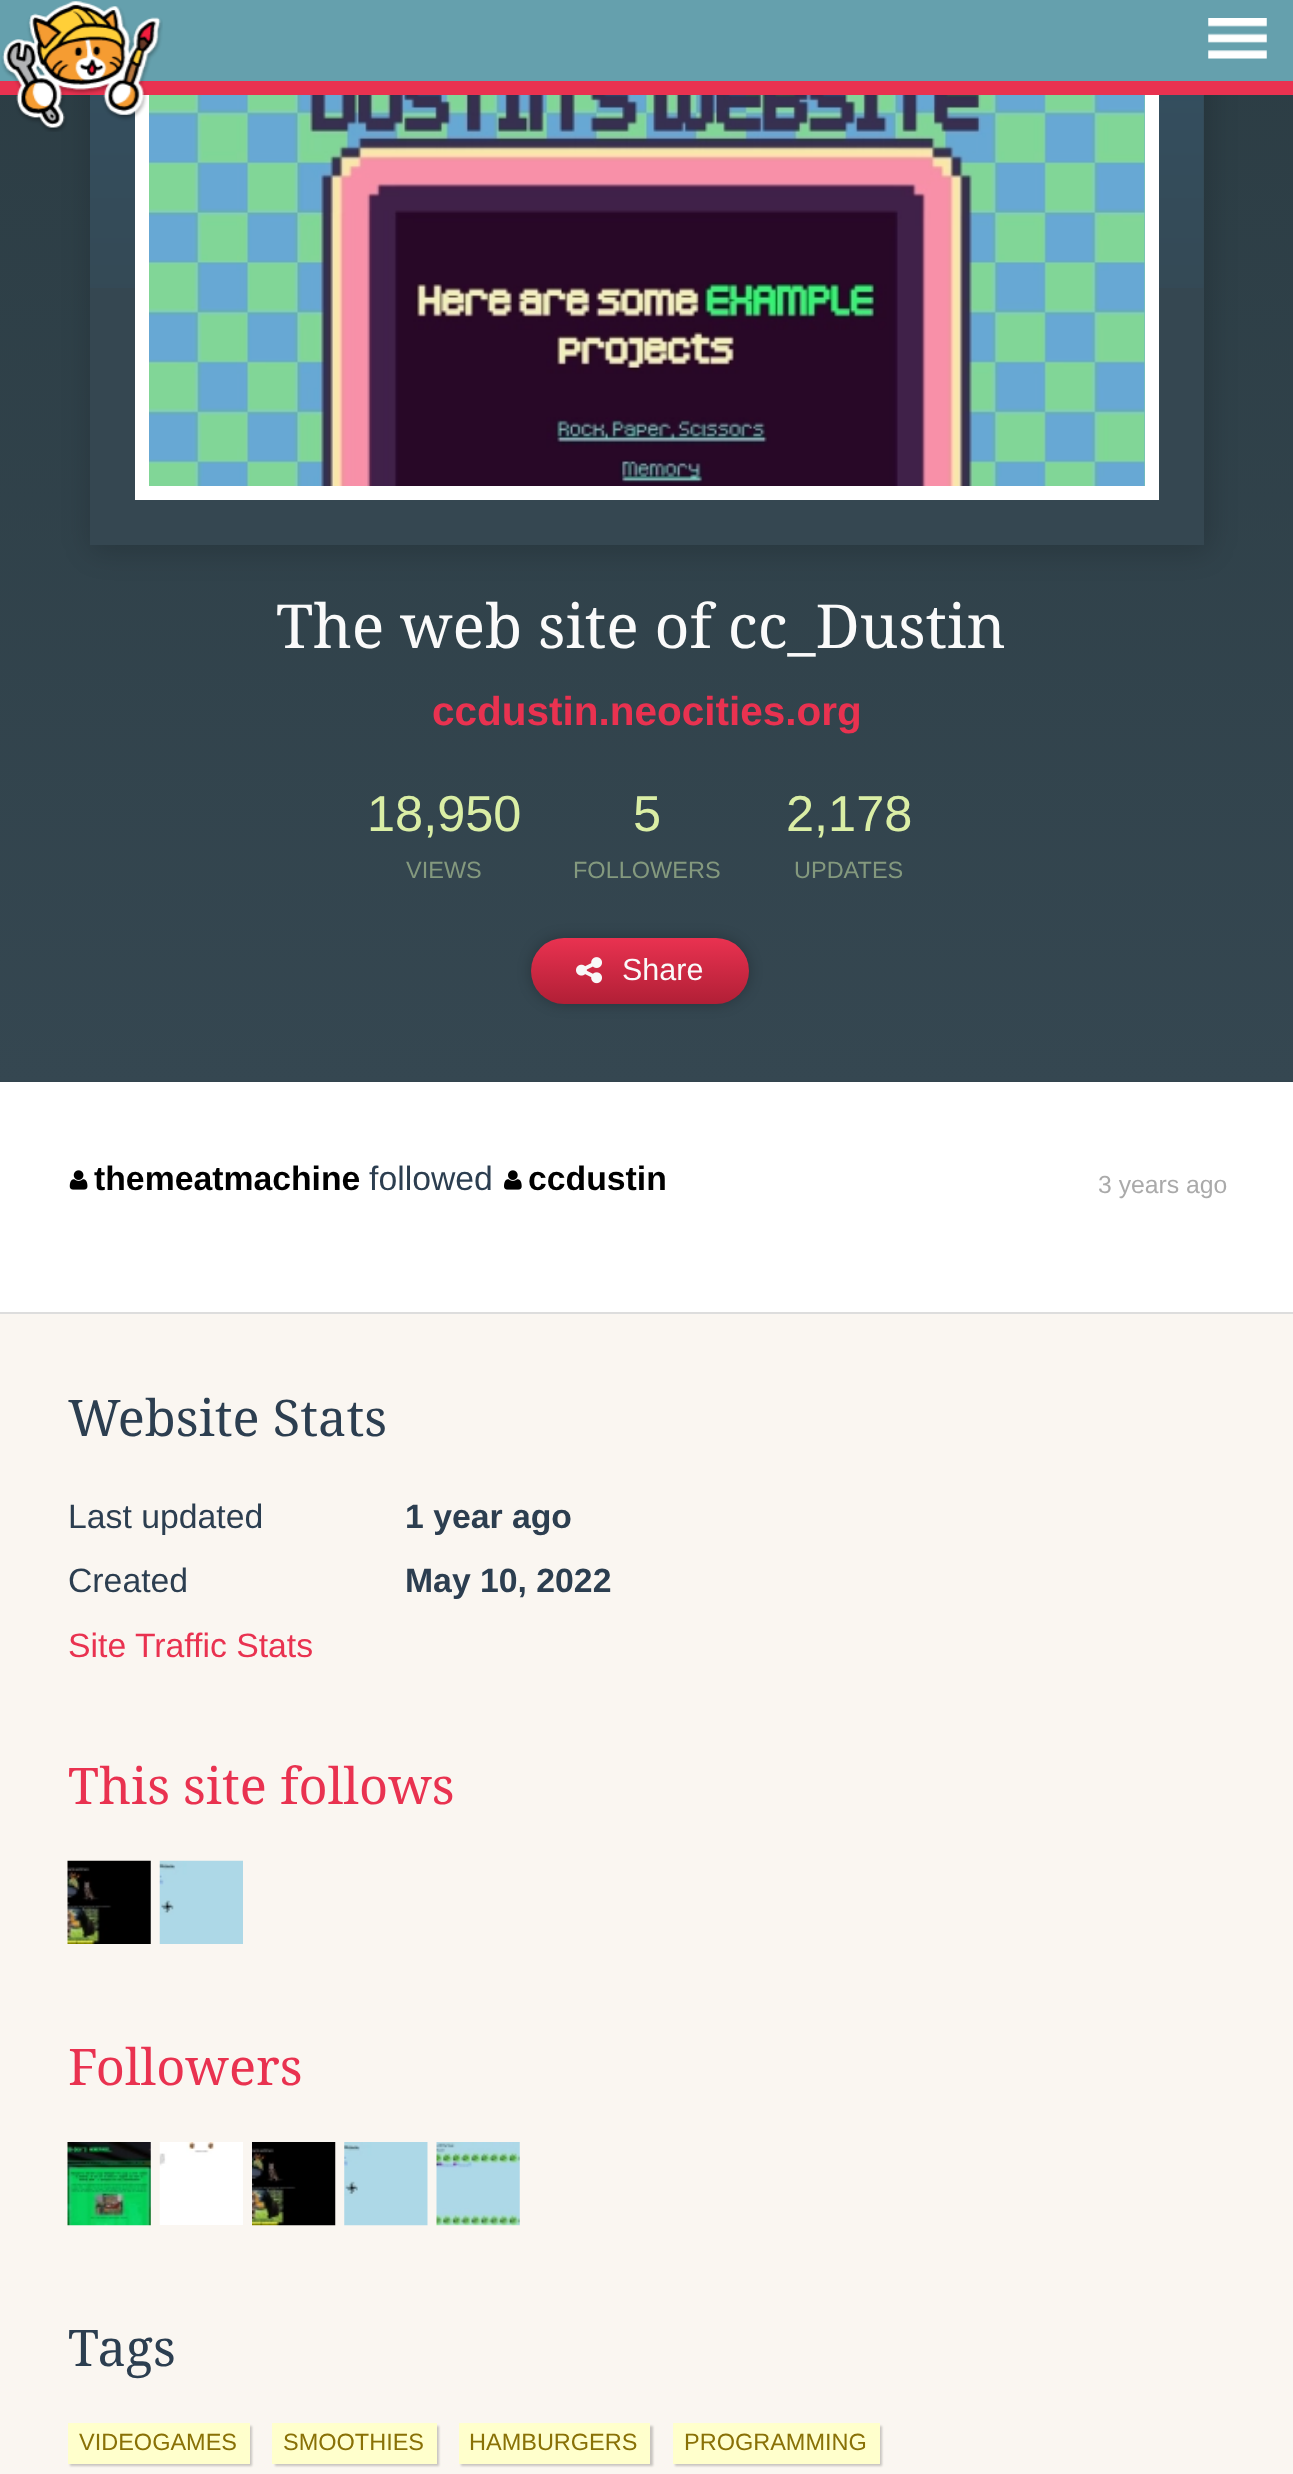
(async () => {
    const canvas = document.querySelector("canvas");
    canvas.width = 1293;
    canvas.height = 2474;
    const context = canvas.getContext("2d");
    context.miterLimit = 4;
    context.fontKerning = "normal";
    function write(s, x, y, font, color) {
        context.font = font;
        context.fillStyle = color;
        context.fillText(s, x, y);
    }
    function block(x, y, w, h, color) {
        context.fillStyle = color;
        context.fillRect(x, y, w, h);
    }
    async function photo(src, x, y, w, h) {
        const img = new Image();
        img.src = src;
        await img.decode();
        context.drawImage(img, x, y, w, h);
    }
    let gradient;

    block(0, 0, 1293, 2474, "rgb(255, 255, 255)");
    gradient = context.createLinearGradient(647, -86, 647, 1082);
    gradient.addColorStop(0, "rgb(43, 60, 67)");
    gradient.addColorStop(1, "rgb(53, 71, 81)");
    context.fillStyle = gradient;
    context.fillRect(0, 95, 1293, 987);
    context.fillStyle = "rgba(0, 0, 0, 0.15)";
    context.filter = "blur(13.5px)";
    context.beginPath();
    context.roundRect(88, 5, 1123, 549, 14);
    context.fill();
    context.filter = "none";
    block(90, 95, 1114, 450, "rgb(53, 71, 81)");
    await photo("media/3.png", 90, 95, 1114, 193);
    await photo("media/4.png", 149, 95, 996, 391);
    context.strokeStyle = "rgb(255, 255, 255)";
    context.lineWidth = 14;
    context.strokeRect(142, 57, 1010, 436);
    block(0, 0, 1293, 81, "rgb(101, 160, 173)");
    block(0, 81, 1293, 14, "rgb(233, 50, 80)");
    await photo("media/1.png", 1, 1, 162, 131);
    await photo("media/2.png", 1208, 18, 59, 41);
    write("The web site of cc_Dustin", 276, 648, "60.75px Droid Serif", "rgb(250, 250, 250)");
    write("ccdustin.neocities.org", 432, 725, "bold 40.5px Liberation Sans", "rgb(233, 50, 80)");
    write("18,950", 367, 831, "50.5px Liberation Sans", "rgb(218, 238, 165)");
    write("VIEWS", 406, 878, "23.5px Liberation Sans", "rgb(132, 153, 126)");
    write("5", 633, 831, "50.5px Liberation Sans", "rgb(218, 238, 165)");
    write("FOLLOWERS", 573, 878, "23.5px Liberation Sans", "rgb(132, 153, 126)");
    write("2,178", 786, 831, "50.5px Liberation Sans", "rgb(218, 238, 165)");
    write("UPDATES", 794, 878, "23.5px Liberation Sans", "rgb(132, 153, 126)");
    context.fillStyle = "rgba(0, 0, 0, 0.25)";
    context.filter = "blur(7px)";
    context.beginPath();
    context.roundRect(531, 938, 218, 66, 33);
    context.fill();
    context.filter = "none";
    gradient = context.createLinearGradient(640, 938, 640, 1004);
    gradient.addColorStop(0, "rgb(233, 50, 80)");
    gradient.addColorStop(1, "rgb(177, 31, 54)");
    context.fillStyle = gradient;
    context.beginPath();
    context.roundRect(531, 938, 218, 66, 33);
    context.fill();
    await photo("media/5.png", 576, 957, 26, 27);
    write("Share", 622, 980, "30.5px Liberation Sans", "rgb(250, 250, 250)");
    context.fillStyle = "rgba(0, 0, 0, 0.1)";
    context.filter = "blur(1px)";
    context.beginPath();
    context.rect(-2, 1082, 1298, 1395);
    context.fill();
    context.filter = "none";
    block(0, 1314, 1293, 1160, "rgb(250, 246, 241)");
    block(0, 1082, 1293, 230, "rgb(255, 255, 255)");
    block(0, 1312, 1293, 2, "rgb(221, 221, 221)");
    await photo("media/6.png", 69, 1170, 19, 20);
    write("themeatmachine", 94, 1190, "bold 33.75px Liberation Sans", "rgb(0, 0, 0)");
    write("followed", 369, 1190, "33.75px Liberation Sans", "rgb(44, 62, 80)");
    await photo("media/7.png", 504, 1170, 18, 20);
    write("ccdustin", 528, 1190, "bold 33.75px Liberation Sans", "rgb(0, 0, 0)");
    write("3 years ago", 1098, 1193, "24.75px Liberation Sans", "rgb(170, 170, 170)");
    write("Website Stats", 68, 1436, "50.5px Droid Serif", "rgb(44, 62, 80)");
    write("Last updated", 68, 1528, "33.75px Liberation Sans", "rgb(44, 62, 80)");
    write("1 year ago", 405, 1528, "bold 33.75px Liberation Sans", "rgb(44, 62, 80)");
    write("Created", 68, 1592, "33.75px Liberation Sans", "rgb(44, 62, 80)");
    write("May 10, 2022", 405, 1592, "bold 33.75px Liberation Sans", "rgb(44, 62, 80)");
    write("Site Traffic Stats", 68, 1657, "33.75px Liberation Sans", "rgb(233, 50, 80)");
    write("This site follows", 68, 1804, "50.5px Droid Serif", "rgb(233, 50, 80)");
    await photo("media/8.png", 67, 1860, 84, 84);
    await photo("media/9.png", 159, 1860, 84, 84);
    write("Followers", 68, 2085, "50.5px Droid Serif", "rgb(233, 50, 80)");
    await photo("media/10.png", 67, 2142, 84, 84);
    await photo("media/11.png", 159, 2142, 84, 83);
    await photo("media/12.png", 252, 2142, 84, 84);
    await photo("media/13.png", 344, 2142, 84, 84);
    await photo("media/14.png", 436, 2142, 84, 84);
    write("Tags", 68, 2366, "50.5px Droid Serif", "rgb(44, 62, 80)");
    context.fillStyle = "rgba(0, 0, 0, 0.2)";
    context.filter = "blur(1px)";
    context.beginPath();
    context.rect(70, 2426, 182, 40);
    context.fill();
    context.filter = "none";
    block(68, 2423, 182, 41, "rgb(255, 255, 204)");
    write("VIDEOGAMES", 79, 2450, "23.5px Liberation Sans", "rgb(137, 113, 6)");
    context.fillStyle = "rgba(0, 0, 0, 0.2)";
    context.filter = "blur(1px)";
    context.beginPath();
    context.rect(275, 2426, 164, 40);
    context.fill();
    context.filter = "none";
    block(272, 2423, 165, 41, "rgb(255, 255, 204)");
    write("SMOOTHIES", 283, 2450, "23.5px Liberation Sans", "rgb(137, 113, 6)");
    context.fillStyle = "rgba(0, 0, 0, 0.2)";
    context.filter = "blur(1px)";
    context.beginPath();
    context.rect(461, 2426, 192, 40);
    context.fill();
    context.filter = "none";
    block(459, 2423, 191, 41, "rgb(255, 255, 204)");
    write("HAMBURGERS", 469, 2450, "23.5px Liberation Sans", "rgb(137, 113, 6)");
    context.fillStyle = "rgba(0, 0, 0, 0.2)";
    context.filter = "blur(1px)";
    context.beginPath();
    context.rect(675, 2426, 207, 40);
    context.fill();
    context.filter = "none";
    block(673, 2423, 207, 41, "rgb(255, 255, 204)");
    write("PROGRAMMING", 684, 2450, "23.5px Liberation Sans", "rgb(137, 113, 6)");
})();
